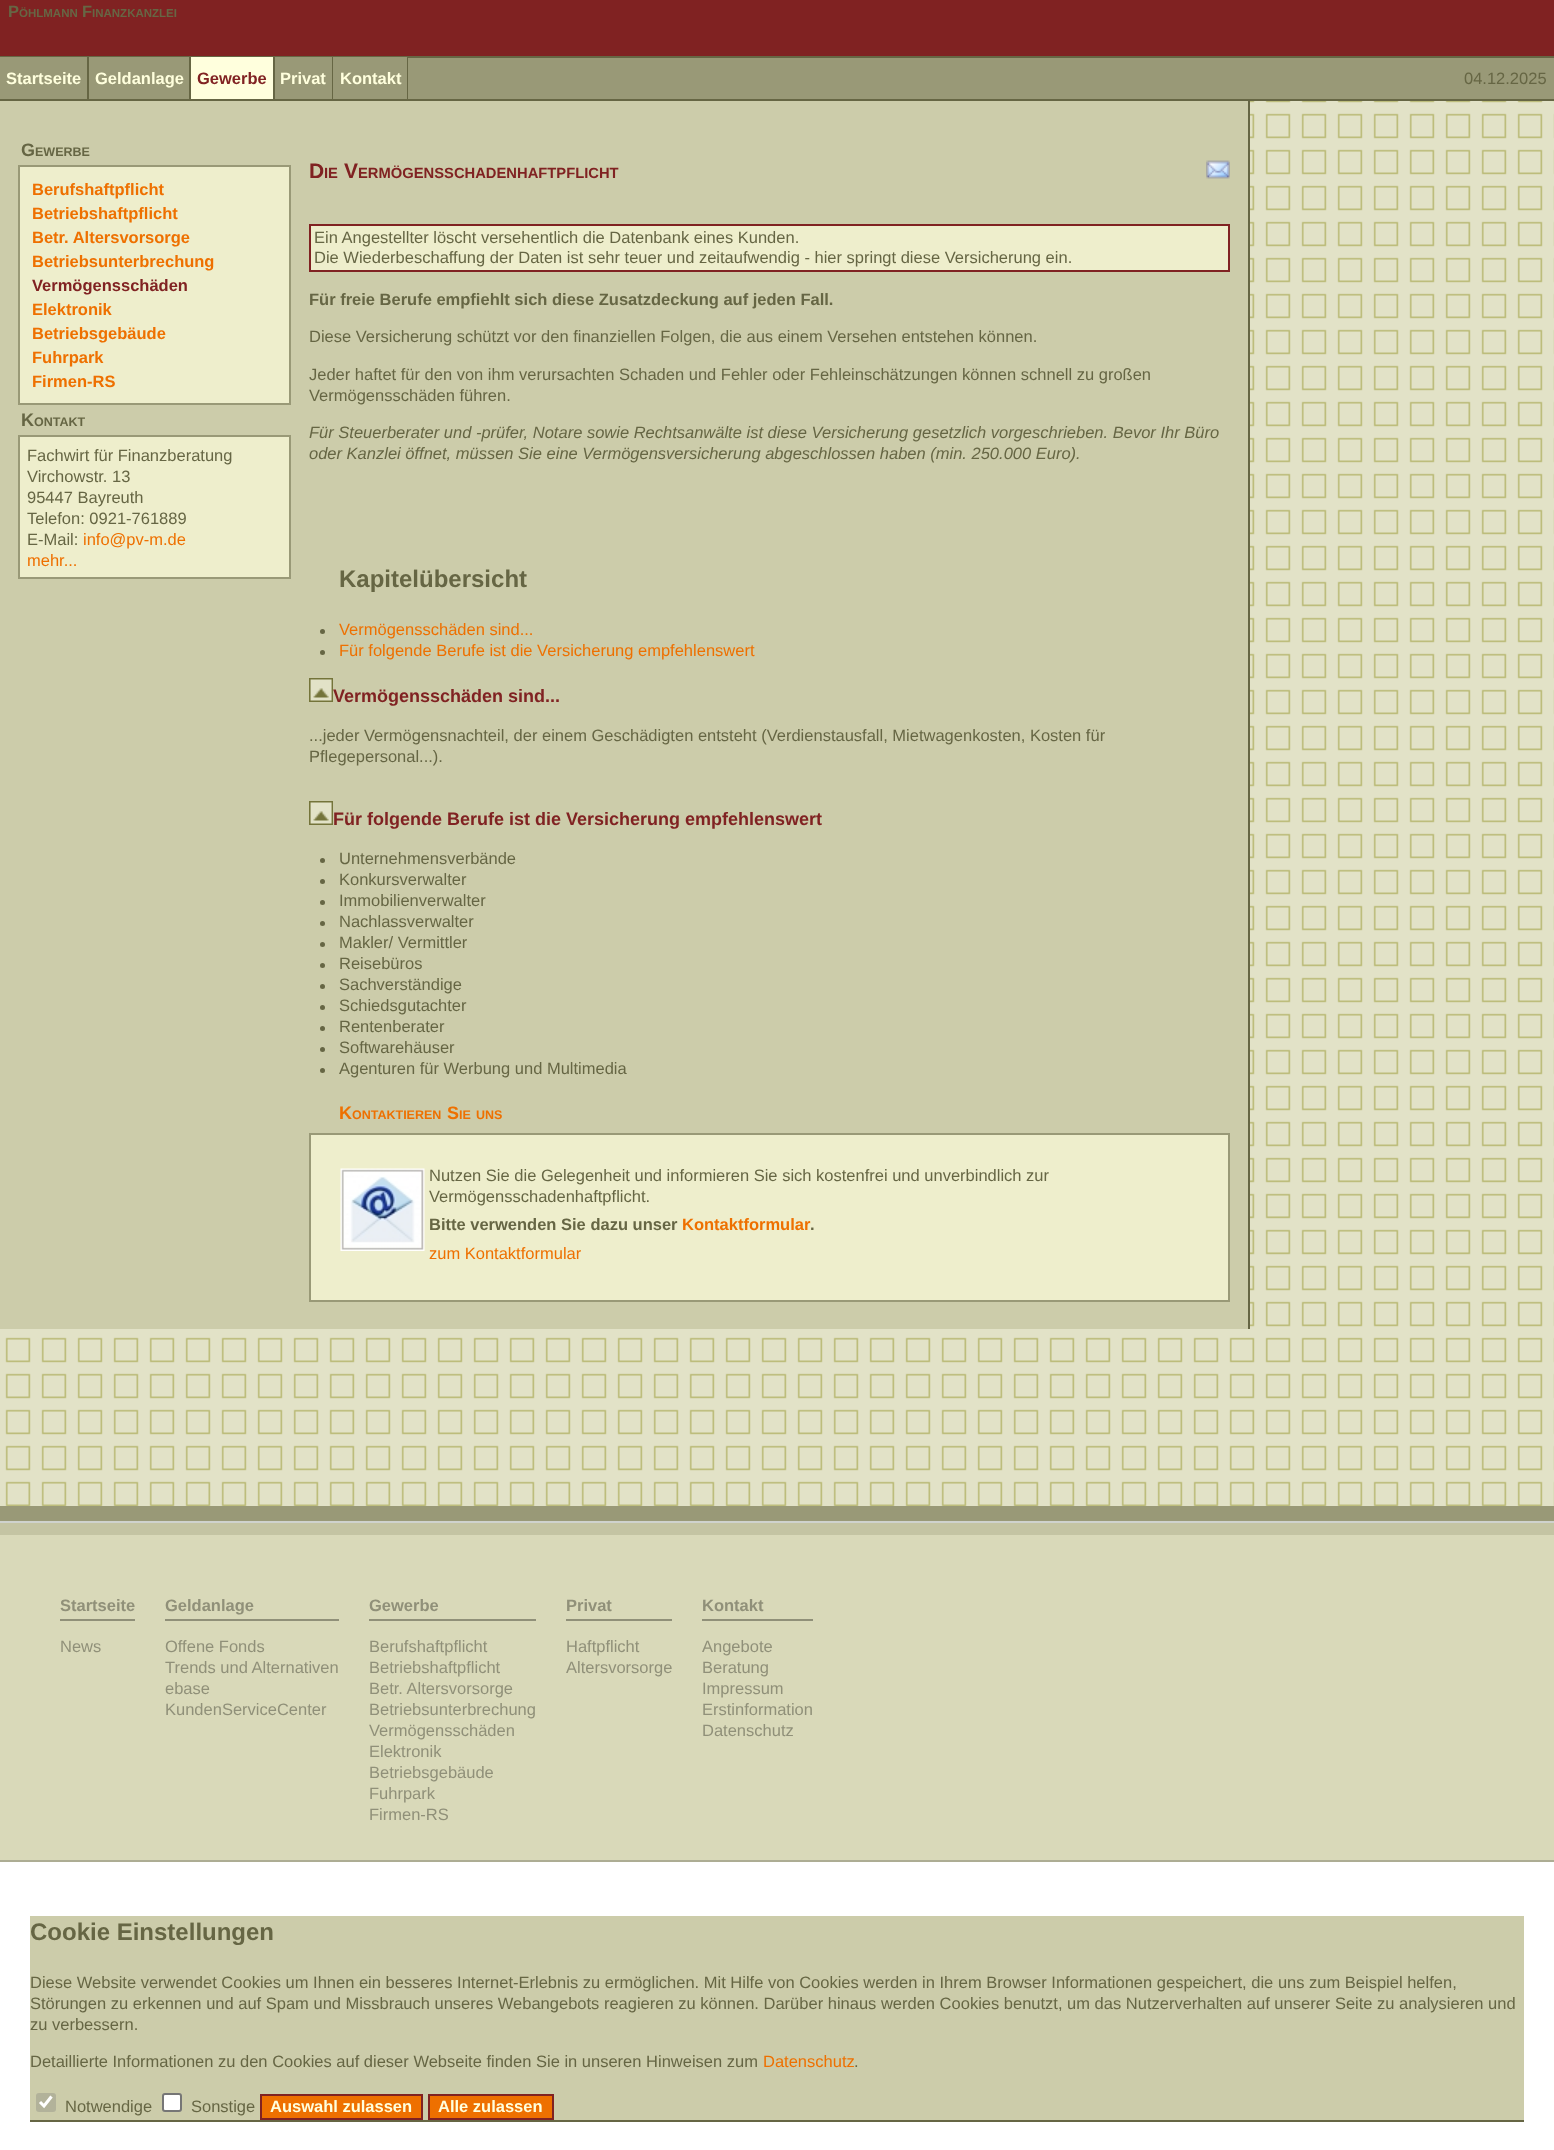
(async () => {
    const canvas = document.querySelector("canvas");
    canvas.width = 1554;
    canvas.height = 2150;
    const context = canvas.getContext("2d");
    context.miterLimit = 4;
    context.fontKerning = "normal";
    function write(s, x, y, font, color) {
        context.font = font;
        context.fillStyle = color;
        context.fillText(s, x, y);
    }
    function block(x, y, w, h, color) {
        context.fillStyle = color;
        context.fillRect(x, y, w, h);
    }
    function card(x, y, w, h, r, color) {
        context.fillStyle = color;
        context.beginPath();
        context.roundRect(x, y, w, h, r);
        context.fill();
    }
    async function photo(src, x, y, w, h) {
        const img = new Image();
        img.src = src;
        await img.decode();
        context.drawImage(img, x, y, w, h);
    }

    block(0, 0, 1554, 2150, "rgb(255, 255, 255)");
    await photo("media/1.png", 0, 101, 1554, 1405);
    block(0, 0, 1554, 56, "rgb(128, 34, 34)");
    write("P", 8, 17, "bold 16.5px Liberation Sans", "rgb(102, 102, 68)");
    write("ÖHLMANN", 19, 17, "bold 11.5px Liberation Sans", "rgb(102, 102, 68)");
    write("F", 82, 17, "bold 16.5px Liberation Sans", "rgb(102, 102, 68)");
    write("INANZKANZLEI", 92, 17, "bold 11.5px Liberation Sans", "rgb(102, 102, 68)");
    block(0, 56, 408, 1, "rgb(102, 102, 68)");
    block(0, 99, 1554, 2, "rgb(102, 102, 68)");
    block(0, 57, 87, 42, "rgb(153, 153, 119)");
    block(87, 57, 2, 42, "rgb(102, 102, 68)");
    write("Startseite", 6, 84, "bold 16.5px Liberation Sans", "rgb(255, 255, 221)");
    block(89, 57, 100, 42, "rgb(153, 153, 119)");
    block(189, 57, 2, 42, "rgb(102, 102, 68)");
    write("Geldanlage", 95, 84, "bold 16.5px Liberation Sans", "rgb(255, 255, 221)");
    block(191, 57, 82, 42, "rgb(255, 255, 221)");
    block(273, 57, 2, 42, "rgb(102, 102, 68)");
    write("Gewerbe", 197, 84, "bold 16.5px Liberation Sans", "rgb(128, 34, 34)");
    block(275, 57, 57, 42, "rgb(153, 153, 119)");
    block(332, 57, 1, 42, "rgb(102, 102, 68)");
    write("Privat", 280, 84, "bold 16.5px Liberation Sans", "rgb(255, 255, 221)");
    block(333, 57, 74, 42, "rgb(153, 153, 119)");
    block(407, 57, 1, 42, "rgb(102, 102, 68)");
    write("Kontakt", 340, 84, "bold 16.5px Liberation Sans", "rgb(255, 255, 221)");
    block(408, 58, 1146, 41, "rgb(153, 153, 119)");
    block(408, 56, 1146, 2, "rgb(102, 102, 68)");
    write("04.12.2025", 1464, 84, "16.5px Liberation Sans", "rgb(102, 102, 68)");
    block(0, 101, 1248, 1228, "rgb(204, 204, 170)");
    block(1248, 101, 2, 1228, "rgb(102, 102, 68)");
    write("G", 21, 156, "bold 18px Liberation Sans", "rgb(102, 102, 68)");
    write("EWERBE", 35, 156, "bold 12.5px Liberation Sans", "rgb(102, 102, 68)");
    context.fillStyle = "rgb(238, 238, 204)";
    context.beginPath();
    context.rect(19, 166, 271, 238);
    context.fill();
    context.strokeStyle = "rgb(153, 153, 119)";
    context.lineWidth = 2;
    context.stroke();
    write("Berufshaftpflicht", 32, 195, "bold 16.5px Liberation Sans", "rgb(238, 112, 0)");
    write("Betriebshaftpflicht", 32, 219, "bold 16.5px Liberation Sans", "rgb(238, 112, 0)");
    write("Betr. Altersvorsorge", 32, 243, "bold 16.5px Liberation Sans", "rgb(238, 112, 0)");
    write("Betriebsunterbrechung", 32, 267, "bold 16.5px Liberation Sans", "rgb(238, 112, 0)");
    write("Vermögensschäden", 32, 291, "bold 16.5px Liberation Sans", "rgb(128, 34, 34)");
    write("Elektronik", 32, 315, "bold 16.5px Liberation Sans", "rgb(238, 112, 0)");
    write("Betriebsgebäude", 32, 339, "bold 16.5px Liberation Sans", "rgb(238, 112, 0)");
    write("Fuhrpark", 32, 363, "bold 16.5px Liberation Sans", "rgb(238, 112, 0)");
    write("Firmen-RS", 32, 387, "bold 16.5px Liberation Sans", "rgb(238, 112, 0)");
    write("K", 21, 426, "bold 18px Liberation Sans", "rgb(102, 102, 68)");
    write("ONTAKT", 34, 426, "bold 12.5px Liberation Sans", "rgb(102, 102, 68)");
    context.fillStyle = "rgb(238, 238, 204)";
    context.beginPath();
    context.rect(19, 436, 271, 142);
    context.fill();
    context.stroke();
    write("Fachwirt für Finanzberatung", 27, 461, "16.5px Liberation Sans", "rgb(102, 102, 68)");
    write("Virchowstr. 13", 27, 482, "16.5px Liberation Sans", "rgb(102, 102, 68)");
    write("95447 Bayreuth", 27, 503, "16.5px Liberation Sans", "rgb(102, 102, 68)");
    write("Telefon: 0921-761889", 27, 524, "16.5px Liberation Sans", "rgb(102, 102, 68)");
    write("E-Mail:", 27, 545, "16.5px Liberation Sans", "rgb(102, 102, 68)");
    write("info@pv-m.de", 83, 545, "16.5px Liberation Sans", "rgb(238, 112, 0)");
    write("mehr...", 27, 566, "16.5px Liberation Sans", "rgb(238, 112, 0)");
    write("D", 309, 178, "bold 21px Liberation Sans", "rgb(128, 34, 34)");
    write("IE", 324, 178, "bold 14.75px Liberation Sans", "rgb(128, 34, 34)");
    write("V", 344, 178, "bold 21px Liberation Sans", "rgb(128, 34, 34)");
    write("ERMÖGENSSCHADENHAFTPFLICHT", 358, 178, "bold 14.75px Liberation Sans", "rgb(128, 34, 34)");
    await photo("media/2.png", 1206, 160, 24, 19);
    context.fillStyle = "rgb(238, 238, 204)";
    context.beginPath();
    context.rect(310, 225, 919, 46);
    context.fill();
    context.strokeStyle = "rgb(128, 34, 34)";
    context.stroke();
    write("Ein Angestellter löscht versehentlich die Datenbank eines Kunden.", 314, 243, "16.5px Liberation Sans", "rgb(102, 102, 68)");
    write("Die Wiederbeschaffung der Daten ist sehr teuer und zeitaufwendig - hier springt diese Versicherung ein.", 314, 263, "16.5px Liberation Sans", "rgb(102, 102, 68)");
    write("Für freie Berufe empfiehlt sich diese Zusatzdeckung auf jeden Fall.", 309, 305, "bold 16.5px Liberation Sans", "rgb(102, 102, 68)");
    write("Diese Versicherung schützt vor den finanziellen Folgen, die aus einem Versehen entstehen können.", 309, 342, "16.5px Liberation Sans", "rgb(102, 102, 68)");
    write("Jeder haftet für den von ihm verursachten Schaden und Fehler oder Fehleinschätzungen können schnell zu großen", 309, 380, "16.5px Liberation Sans", "rgb(102, 102, 68)");
    write("Vermögensschäden führen.", 309, 401, "16.5px Liberation Sans", "rgb(102, 102, 68)");
    write("Für Steuerberater und -prüfer, Notare sowie Rechtsanwälte ist diese Versicherung gesetzlich vorgeschrieben. Bevor Ihr Büro", 309, 438, "italic 16.5px Liberation Sans", "rgb(102, 102, 68)");
    write("oder Kanzlei öffnet, müssen Sie eine Vermögensversicherung abgeschlossen haben (min. 250.000 Euro).", 309, 459, "italic 16.5px Liberation Sans", "rgb(102, 102, 68)");
    write("Kapitelübersicht", 339, 587, "bold 24px Liberation Sans", "rgb(102, 102, 68)");
    context.beginPath();
    context.arc(322.5, 631.5, 2.5, 0, Math.PI * 2);
    context.fill();
    write("Vermögensschäden sind...", 339, 635, "16.5px Liberation Sans", "rgb(238, 112, 0)");
    context.fillStyle = "rgb(102, 102, 68)";
    context.beginPath();
    context.arc(322.5, 652.5, 2.5, 0, Math.PI * 2);
    context.fill();
    write("Für folgende Berufe ist die Versicherung empfehlenswert", 339, 656, "16.5px Liberation Sans", "rgb(238, 112, 0)");
    await photo("media/3.png", 309, 678, 24, 24);
    write("Vermögensschäden sind...", 333, 702, "bold 18px Liberation Sans", "rgb(128, 34, 34)");
    write("...jeder Vermögensnachteil, der einem Geschädigten entsteht (Verdienstausfall, Mietwagenkosten, Kosten für", 309, 741, "16.5px Liberation Sans", "rgb(102, 102, 68)");
    write("Pflegepersonal...).", 309, 762, "16.5px Liberation Sans", "rgb(102, 102, 68)");
    await photo("media/3.png", 309, 801, 24, 24);
    write("Für folgende Berufe ist die Versicherung empfehlenswert", 333, 825, "bold 18px Liberation Sans", "rgb(128, 34, 34)");
    context.fillStyle = "rgb(102, 102, 68)";
    context.beginPath();
    context.arc(322.5, 860.5, 2.5, 0, Math.PI * 2);
    context.fill();
    write("Unternehmensverbände", 339, 864, "16.5px Liberation Sans", "rgb(102, 102, 68)");
    context.beginPath();
    context.arc(322.5, 881.5, 2.5, 0, Math.PI * 2);
    context.fill();
    write("Konkursverwalter", 339, 885, "16.5px Liberation Sans", "rgb(102, 102, 68)");
    context.beginPath();
    context.arc(322.5, 902.5, 2.5, 0, Math.PI * 2);
    context.fill();
    write("Immobilienverwalter", 339, 906, "16.5px Liberation Sans", "rgb(102, 102, 68)");
    context.beginPath();
    context.arc(322.5, 923.5, 2.5, 0, Math.PI * 2);
    context.fill();
    write("Nachlassverwalter", 339, 927, "16.5px Liberation Sans", "rgb(102, 102, 68)");
    context.beginPath();
    context.arc(322.5, 944.5, 2.5, 0, Math.PI * 2);
    context.fill();
    write("Makler/ Vermittler", 339, 948, "16.5px Liberation Sans", "rgb(102, 102, 68)");
    context.beginPath();
    context.arc(322.5, 965.5, 2.5, 0, Math.PI * 2);
    context.fill();
    write("Reisebüros", 339, 969, "16.5px Liberation Sans", "rgb(102, 102, 68)");
    context.beginPath();
    context.arc(322.5, 986.5, 2.5, 0, Math.PI * 2);
    context.fill();
    write("Sachverständige", 339, 990, "16.5px Liberation Sans", "rgb(102, 102, 68)");
    context.beginPath();
    context.arc(322.5, 1007.5, 2.5, 0, Math.PI * 2);
    context.fill();
    write("Schiedsgutachter", 339, 1011, "16.5px Liberation Sans", "rgb(102, 102, 68)");
    context.beginPath();
    context.arc(322.5, 1028.5, 2.5, 0, Math.PI * 2);
    context.fill();
    write("Rentenberater", 339, 1032, "16.5px Liberation Sans", "rgb(102, 102, 68)");
    context.beginPath();
    context.arc(322.5, 1049.5, 2.5, 0, Math.PI * 2);
    context.fill();
    write("Softwarehäuser", 339, 1053, "16.5px Liberation Sans", "rgb(102, 102, 68)");
    context.beginPath();
    context.arc(322.5, 1070.5, 2.5, 0, Math.PI * 2);
    context.fill();
    write("Agenturen für Werbung und Multimedia", 339, 1074, "16.5px Liberation Sans", "rgb(102, 102, 68)");
    write("K", 339, 1119, "bold 18px Liberation Sans", "rgb(238, 112, 0)");
    write("ONTAKTIEREN", 352, 1119, "bold 12.5px Liberation Sans", "rgb(238, 112, 0)");
    write("S", 447, 1119, "bold 18px Liberation Sans", "rgb(238, 112, 0)");
    write("IE", 459, 1119, "bold 12.5px Liberation Sans", "rgb(238, 112, 0)");
    write("UNS", 476, 1119, "bold 12.5px Liberation Sans", "rgb(238, 112, 0)");
    context.fillStyle = "rgb(238, 238, 204)";
    context.beginPath();
    context.rect(310, 1134, 919, 167);
    context.fill();
    context.strokeStyle = "rgb(153, 153, 119)";
    context.stroke();
    await photo("media/4.png", 340, 1168, 85, 83);
    write("Nutzen Sie die Gelegenheit und informieren Sie sich kostenfrei und unverbindlich zur", 429, 1181, "16.5px Liberation Sans", "rgb(102, 102, 68)");
    write("Vermögensschadenhaftpflicht.", 429, 1202, "16.5px Liberation Sans", "rgb(102, 102, 68)");
    write("Bitte verwenden Sie dazu unser", 429, 1230, "bold 16.5px Liberation Sans", "rgb(102, 102, 68)");
    write("Kontaktformular", 682, 1230, "bold 16.5px Liberation Sans", "rgb(238, 112, 0)");
    write(".", 810, 1230, "bold 16.5px Liberation Sans", "rgb(102, 102, 68)");
    write("zum Kontaktformular", 429, 1259, "16.5px Liberation Sans", "rgb(238, 112, 0)");
    block(0, 1506, 1554, 15, "rgb(153, 153, 119)");
    block(0, 1521, 1554, 2, "rgb(207, 210, 205)");
    block(0, 1535, 1554, 327, "rgb(217, 217, 185)");
    block(0, 1523, 1554, 12, "rgb(196, 196, 163)");
    block(60, 1619, 75, 2, "rgb(144, 144, 121)");
    write("Startseite", 60, 1611, "bold 16.5px Liberation Sans", "rgb(144, 144, 121)");
    write("News", 60, 1652, "16.5px Liberation Sans", "rgb(144, 144, 121)");
    block(165, 1619, 174, 2, "rgb(144, 144, 121)");
    write("Geldanlage", 165, 1611, "bold 16.5px Liberation Sans", "rgb(144, 144, 121)");
    write("Offene Fonds", 165, 1652, "16.5px Liberation Sans", "rgb(144, 144, 121)");
    write("Trends und Alternativen", 165, 1673, "16.5px Liberation Sans", "rgb(144, 144, 121)");
    write("ebase", 165, 1694, "16.5px Liberation Sans", "rgb(144, 144, 121)");
    write("KundenServiceCenter", 165, 1715, "16.5px Liberation Sans", "rgb(144, 144, 121)");
    block(369, 1619, 167, 2, "rgb(144, 144, 121)");
    write("Gewerbe", 369, 1611, "bold 16.5px Liberation Sans", "rgb(144, 144, 121)");
    write("Berufshaftpflicht", 369, 1652, "16.5px Liberation Sans", "rgb(144, 144, 121)");
    write("Betriebshaftpflicht", 369, 1673, "16.5px Liberation Sans", "rgb(144, 144, 121)");
    write("Betr. Altersvorsorge", 369, 1694, "16.5px Liberation Sans", "rgb(144, 144, 121)");
    write("Betriebsunterbrechung", 369, 1715, "16.5px Liberation Sans", "rgb(144, 144, 121)");
    write("Vermögensschäden", 369, 1736, "16.5px Liberation Sans", "rgb(144, 144, 121)");
    write("Elektronik", 369, 1757, "16.5px Liberation Sans", "rgb(144, 144, 121)");
    write("Betriebsgebäude", 369, 1778, "16.5px Liberation Sans", "rgb(144, 144, 121)");
    write("Fuhrpark", 369, 1799, "16.5px Liberation Sans", "rgb(144, 144, 121)");
    write("Firmen-RS", 369, 1820, "16.5px Liberation Sans", "rgb(144, 144, 121)");
    block(566, 1619, 106, 2, "rgb(144, 144, 121)");
    write("Privat", 566, 1611, "bold 16.5px Liberation Sans", "rgb(144, 144, 121)");
    write("Haftpflicht", 566, 1652, "16.5px Liberation Sans", "rgb(144, 144, 121)");
    write("Altersvorsorge", 566, 1673, "16.5px Liberation Sans", "rgb(144, 144, 121)");
    block(702, 1619, 111, 2, "rgb(144, 144, 121)");
    write("Kontakt", 702, 1611, "bold 16.5px Liberation Sans", "rgb(144, 144, 121)");
    write("Angebote", 702, 1652, "16.5px Liberation Sans", "rgb(144, 144, 121)");
    write("Beratung", 702, 1673, "16.5px Liberation Sans", "rgb(144, 144, 121)");
    write("Impressum", 702, 1694, "16.5px Liberation Sans", "rgb(144, 144, 121)");
    write("Erstinformation", 702, 1715, "16.5px Liberation Sans", "rgb(144, 144, 121)");
    write("Datenschutz", 702, 1736, "16.5px Liberation Sans", "rgb(144, 144, 121)");
    context.strokeStyle = "rgba(0, 0, 0, 0.2)";
    context.strokeRect(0, 1861, 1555, 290);
    block(0, 1862, 1, 288, "rgb(255, 255, 255)");
    block(30, 1916, 1494, 204, "rgb(204, 204, 170)");
    block(30, 2120, 1494, 2, "rgb(102, 102, 68)");
    write("Cookie Einstellungen", 30, 1940, "bold 24px Liberation Sans", "rgb(102, 102, 68)");
    write("Diese Website verwendet Cookies um Ihnen ein besseres Internet-Erlebnis zu ermöglichen. Mit Hilfe von Cookies werden in Ihrem Browser Informationen gespeichert, die uns zum Beispiel helfen,", 30, 1988, "16.5px Liberation Sans", "rgb(102, 102, 68)");
    write("Störungen zu erkennen und auf Spam und Missbrauch unseres Webangebots reagieren zu können. Darüber hinaus werden Cookies benutzt, um das Nutzerverhalten auf unserer Seite zu analysieren und", 30, 2009, "16.5px Liberation Sans", "rgb(102, 102, 68)");
    write("zu verbessern.", 30, 2030, "16.5px Liberation Sans", "rgb(102, 102, 68)");
    write("Detaillierte Informationen zu den Cookies auf dieser Webseite finden Sie in unseren Hinweisen zum", 30, 2067, "16.5px Liberation Sans", "rgb(102, 102, 68)");
    write("Datenschutz", 763, 2067, "16.5px Liberation Sans", "rgb(238, 112, 0)");
    write(".", 854, 2067, "16.5px Liberation Sans", "rgb(102, 102, 68)");
    card(36, 2093, 20, 19, 3, "rgb(178, 178, 154)");
    context.beginPath();
    context.moveTo(40, 2102);
    context.lineTo(44, 2106);
    context.lineTo(51.5, 2096.5);
    context.strokeStyle = "rgb(255, 255, 255)";
    context.lineWidth = 3.1;
    context.stroke();
    write("Notwendige", 65, 2112, "16.5px Liberation Sans", "rgb(102, 102, 68)");
    context.fillStyle = "rgb(255, 255, 255)";
    context.beginPath();
    context.roundRect(163, 2094, 18, 17, 2);
    context.fill();
    context.strokeStyle = "rgb(118, 118, 118)";
    context.lineWidth = 2;
    context.stroke();
    write("Sonstige", 191, 2112, "16.5px Liberation Sans", "rgb(102, 102, 68)");
    context.fillStyle = "rgb(238, 112, 0)";
    context.beginPath();
    context.rect(261, 2095, 161, 24);
    context.fill();
    context.strokeStyle = "rgb(128, 34, 34)";
    context.stroke();
    write("Auswahl zulassen", 270, 2112, "bold 16.5px Liberation Sans", "rgb(255, 255, 221)");
    context.fillStyle = "rgb(238, 112, 0)";
    context.beginPath();
    context.rect(429, 2095, 124, 24);
    context.fill();
    context.stroke();
    write("Alle zulassen", 438, 2112, "bold 16.5px Liberation Sans", "rgb(255, 255, 221)");
})();
